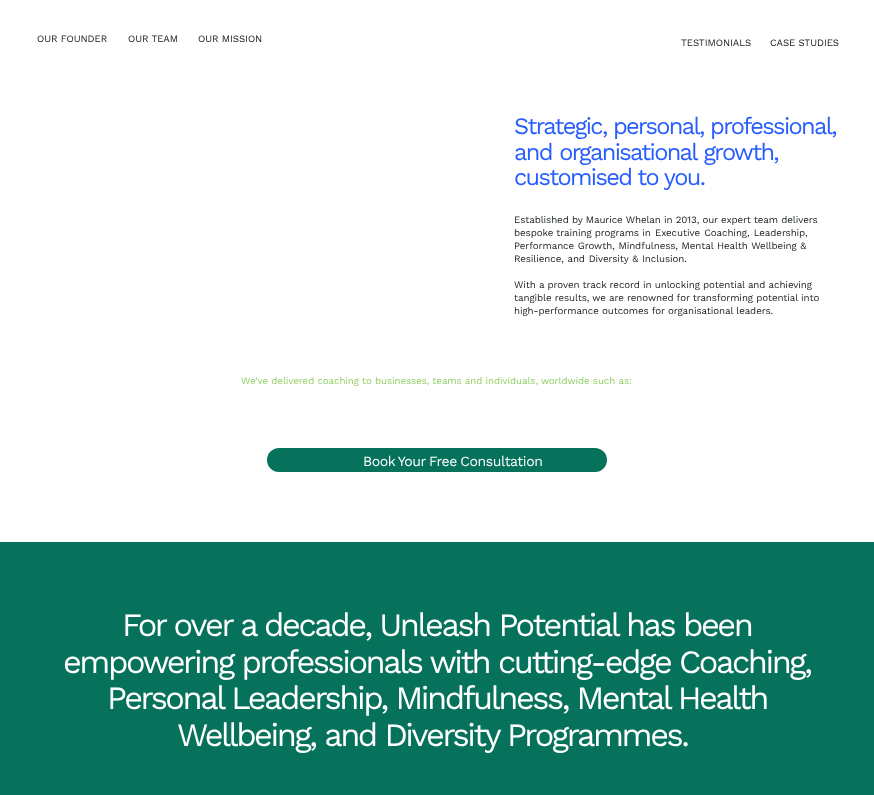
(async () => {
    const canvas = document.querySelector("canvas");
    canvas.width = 874;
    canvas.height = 795;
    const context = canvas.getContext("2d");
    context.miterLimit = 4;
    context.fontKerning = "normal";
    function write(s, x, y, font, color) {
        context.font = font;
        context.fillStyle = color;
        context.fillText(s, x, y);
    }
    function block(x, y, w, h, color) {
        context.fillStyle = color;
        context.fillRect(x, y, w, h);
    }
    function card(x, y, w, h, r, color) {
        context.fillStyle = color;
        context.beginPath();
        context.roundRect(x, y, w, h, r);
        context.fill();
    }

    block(0, 0, 874, 795, "rgb(255, 255, 255)");
    context.letterSpacing = "-0.08px";
    write("OUR FOUNDER", 37, 42, "9.75px Work Sans", "rgb(24, 24, 24)");
    write("OUR TEAM", 128, 42, "9.75px Work Sans", "rgb(24, 24, 24)");
    write("OUR MISSION", 198, 42, "9.75px Work Sans", "rgb(24, 24, 24)");
    write("TESTIMONIALS", 681, 46, "9.75px Work Sans", "rgb(22, 29, 33)");
    write("CASE STUDIES", 770, 46, "9.75px Work Sans", "rgb(24, 24, 24)");
    context.letterSpacing = "-1.65px";
    write("Strategic, personal, professional,", 514, 134, "23.6px Work Sans", "rgb(39, 93, 255)");
    context.wordSpacing = "1px";
    write("and organisational growth,", 514, 160, "23.6px Work Sans", "rgb(39, 93, 255)");
    context.wordSpacing = "0px";
    write("customised to you.", 514, 185, "23.6px Work Sans", "rgb(39, 93, 255)");
    context.letterSpacing = "-0.08px";
    write("Established by Maurice Whelan in 2013, our expert team delivers", 514, 223, "9.75px Work Sans", "rgb(22, 29, 33)");
    write("bespoke training programs in", 514, 236, "9.75px Work Sans", "rgb(22, 29, 33)");
    context.wordSpacing = "1px";
    write("Executive Coaching, Leadership,", 655, 236, "9.75px Work Sans", "rgb(22, 29, 33)");
    context.wordSpacing = "0.5px";
    write("Performance Growth, Mindfulness, Mental Health Wellbeing &", 514, 249, "9.75px Work Sans", "rgb(22, 29, 33)");
    write("Resilience, and Diversity & Inclusion.", 514, 262, "9.75px Work Sans", "rgb(22, 29, 33)");
    context.wordSpacing = "0px";
    write("With a proven track record in unlocking potential and achieving", 514, 288, "9.75px Work Sans", "rgb(22, 29, 33)");
    write("tangible results, we are renowned for transforming potential into", 514, 301, "9.75px Work Sans", "rgb(22, 29, 33)");
    write("high-performance outcomes for organisational leaders.", 514, 314, "9.75px Work Sans", "rgb(22, 29, 33)");
    write("We've delivered coaching to businesses, teams and individuals, worldwide such as:", 241, 384, "9.75px Work Sans", "rgb(144, 207, 96)");
    card(267, 448, 340, 24, 12, "rgb(6, 114, 91)");
    context.letterSpacing = "-0.4px";
    context.wordSpacing = "-1px";
    write("Book Your Free Consultation", 363, 466, "14px Work Sans", "rgb(255, 255, 255)");
    block(0, 542, 874, 253, "rgb(6, 114, 91)");
    context.letterSpacing = "-2.45px";
    context.wordSpacing = "0px";
    write("For over a decade, Unleash Potential has been", 122, 636, "32.6px Work Sans", "rgb(255, 255, 255)");
    write("empowering professionals with cutting-edge Coaching,", 63, 673, "32.6px Work Sans", "rgb(255, 255, 255)");
    write("Personal Leadership, Mindfulness, Mental Health", 107, 709, "32.6px Work Sans", "rgb(255, 255, 255)");
    write("Wellbeing, and Diversity Programmes.", 177, 746, "32.6px Work Sans", "rgb(255, 255, 255)");
})();
